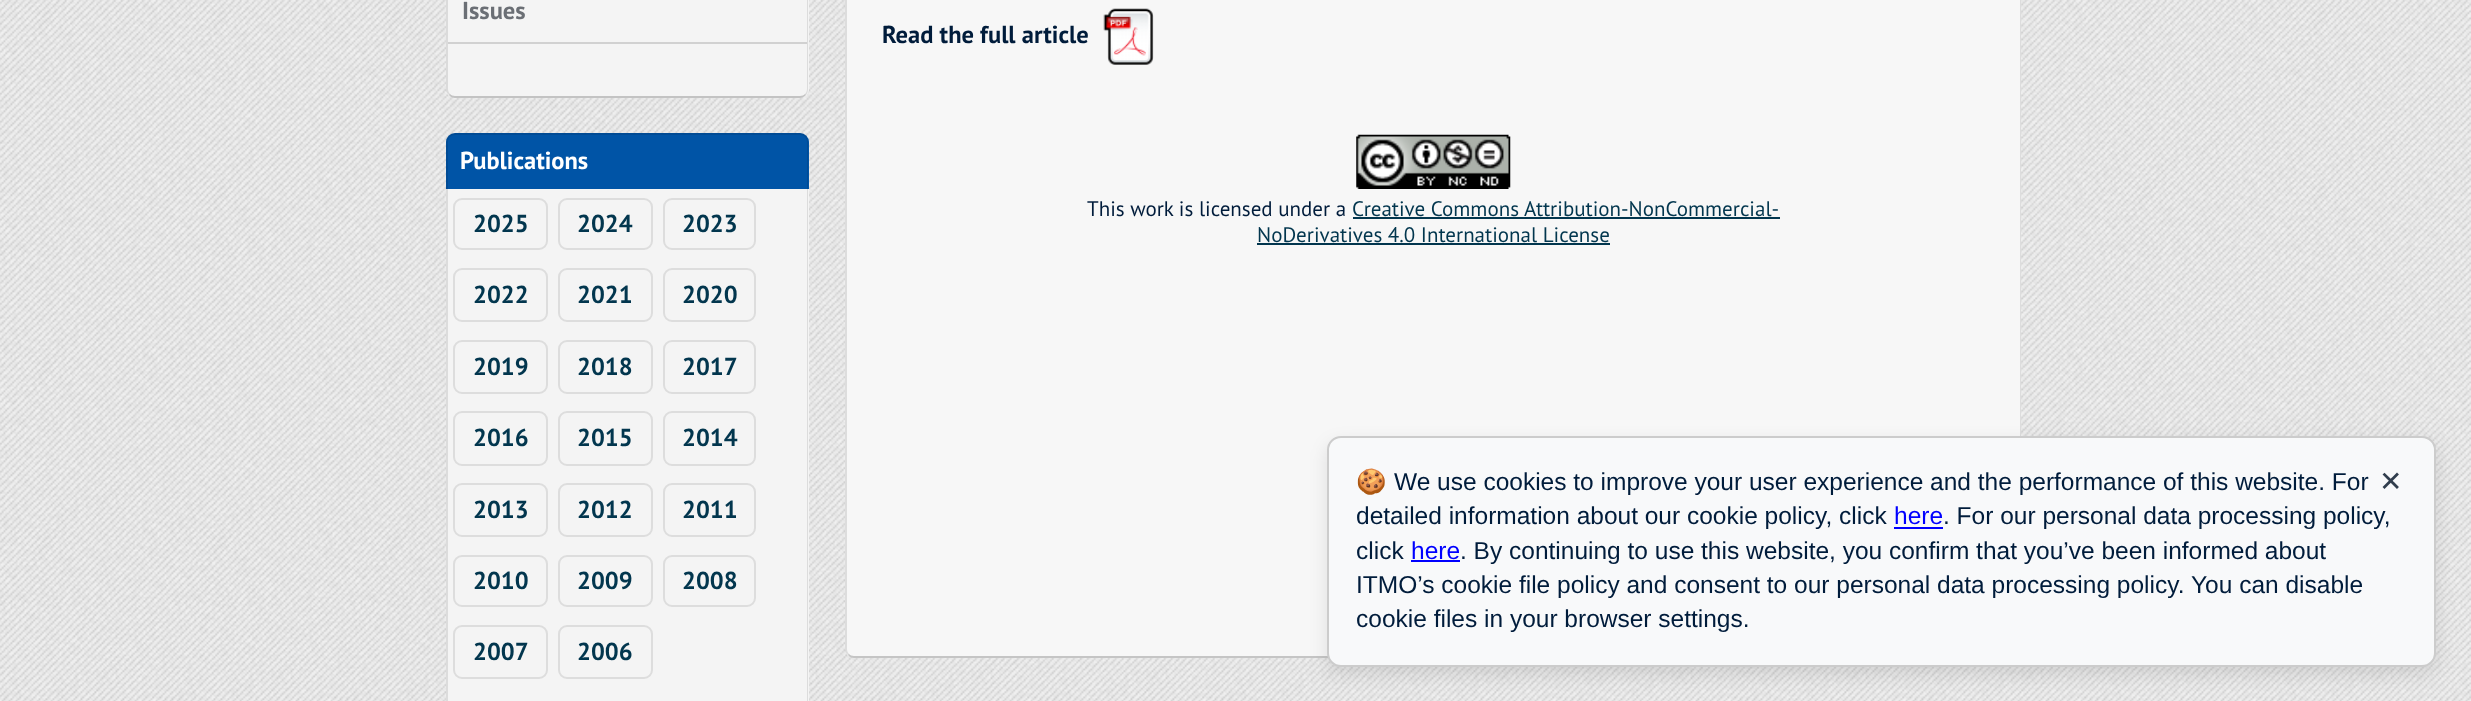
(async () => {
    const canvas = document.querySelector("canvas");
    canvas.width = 2471;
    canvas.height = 701;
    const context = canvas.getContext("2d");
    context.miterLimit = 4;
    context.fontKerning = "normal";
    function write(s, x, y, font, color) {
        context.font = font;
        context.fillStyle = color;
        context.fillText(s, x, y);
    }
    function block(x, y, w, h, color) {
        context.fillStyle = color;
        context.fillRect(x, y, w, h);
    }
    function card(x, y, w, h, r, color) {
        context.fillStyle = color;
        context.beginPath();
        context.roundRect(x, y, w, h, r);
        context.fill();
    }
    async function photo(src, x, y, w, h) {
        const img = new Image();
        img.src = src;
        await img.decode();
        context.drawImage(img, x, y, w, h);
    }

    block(0, 0, 2471, 701, "rgb(255, 255, 255)");
    await photo("media/1.png", 0, 0, 2471, 701);
    context.fillStyle = "rgb(244, 244, 244)";
    context.beginPath();
    context.moveTo(446, -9);
    context.lineTo(809, -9);
    context.lineTo(809, 89);
    context.bezierCurveTo(809, 94, 805, 98, 800, 98);
    context.lineTo(455, 98);
    context.bezierCurveTo(450, 98, 446, 94, 446, 89);
    context.closePath();
    context.fill();
    context.fillStyle = "rgb(220, 220, 220)";
    context.beginPath();
    context.moveTo(808, -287);
    context.lineTo(807, -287);
    context.lineTo(807, 89);
    context.bezierCurveTo(807, 91, 806, 93, 805, 94);
    context.lineTo(806, 95);
    context.bezierCurveTo(807, 94, 808, 92, 808, 89);
    context.closePath();
    context.fill();
    context.fillStyle = "rgba(0, 0, 0, 0.2)";
    context.beginPath();
    context.moveTo(455, 98);
    context.lineTo(800, 98);
    context.bezierCurveTo(802, 98, 804, 97, 806, 95);
    context.lineTo(805, 94);
    context.bezierCurveTo(804, 95, 802, 96, 800, 96);
    context.lineTo(455, 96);
    context.bezierCurveTo(453, 96, 451, 95, 450, 94);
    context.lineTo(449, 95);
    context.bezierCurveTo(450, 97, 453, 98, 455, 98);
    context.closePath();
    context.fill();
    context.fillStyle = "rgba(0, 0, 0, 0.1)";
    context.beginPath();
    context.moveTo(448, -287);
    context.lineTo(448, 89);
    context.bezierCurveTo(448, 91, 449, 93, 450, 94);
    context.lineTo(449, 95);
    context.bezierCurveTo(448, 94, 447, 93, 446, 91);
    context.lineTo(446, -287);
    context.closePath();
    context.fill();
    block(448, 42, 359, 2, "rgb(209, 209, 209)");
    write("Issues", 462, 19, "bold 24.5px PT Sans", "rgb(107, 111, 117)");
    context.fillStyle = "rgb(0, 84, 166)";
    context.beginPath();
    context.roundRect(446, 133, 363, 56, [9, 9, 0, 0]);
    context.fill();
    context.fillStyle = "rgba(0, 0, 0, 0.1)";
    context.beginPath();
    context.moveTo(455, 133);
    context.lineTo(800, 133);
    context.bezierCurveTo(805, 133, 808, 137, 808, 142);
    context.lineTo(808, 189);
    context.lineTo(446, 189);
    context.lineTo(446, 142);
    context.bezierCurveTo(446, 137, 450, 133, 455, 133);
    context.closePath();
    context.moveTo(455, 135);
    context.lineTo(800, 135);
    context.bezierCurveTo(804, 135, 807, 138, 807, 142);
    context.lineTo(807, 189);
    context.lineTo(448, 189);
    context.lineTo(448, 142);
    context.bezierCurveTo(448, 138, 451, 135, 455, 135);
    context.closePath();
    context.fill("evenodd");
    write("Publications", 460, 169, "bold 24.5px PT Sans", "rgb(255, 255, 255)");
    block(448, 189, 361, 512, "rgb(244, 244, 244)");
    context.fillStyle = "rgb(220, 220, 220)";
    context.beginPath();
    context.moveTo(808, 189);
    context.lineTo(807, 189);
    context.lineTo(807, 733);
    context.bezierCurveTo(807, 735, 806, 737, 805, 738);
    context.lineTo(806, 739);
    context.bezierCurveTo(807, 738, 808, 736, 808, 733);
    context.closePath();
    context.fill();
    context.beginPath();
    context.moveTo(448, 189);
    context.lineTo(448, 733);
    context.bezierCurveTo(448, 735, 449, 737, 450, 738);
    context.lineTo(449, 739);
    context.bezierCurveTo(448, 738, 447, 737, 446, 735);
    context.lineTo(446, 189);
    context.closePath();
    context.fill();
    context.beginPath();
    context.roundRect(454, 199, 93, 50, 8);
    context.strokeStyle = "rgb(221, 221, 221)";
    context.lineWidth = 2;
    context.stroke();
    write("2025", 473, 232, "bold 24.5px PT Sans", "rgb(2, 54, 78)");
    context.beginPath();
    context.roundRect(559, 199, 93, 50, 8);
    context.stroke();
    write("2024", 577, 232, "bold 24.5px PT Sans", "rgb(2, 54, 78)");
    context.beginPath();
    context.roundRect(664, 199, 91, 50, 8);
    context.stroke();
    write("2023", 682, 232, "bold 24.5px PT Sans", "rgb(2, 54, 78)");
    context.beginPath();
    context.roundRect(454, 269, 93, 52, 8);
    context.stroke();
    write("2022", 473, 303, "bold 24.5px PT Sans", "rgb(2, 54, 78)");
    context.beginPath();
    context.roundRect(559, 269, 93, 52, 8);
    context.stroke();
    write("2021", 577, 303, "bold 24.5px PT Sans", "rgb(2, 54, 78)");
    context.beginPath();
    context.roundRect(664, 269, 91, 52, 8);
    context.stroke();
    write("2020", 682, 303, "bold 24.5px PT Sans", "rgb(2, 54, 78)");
    context.beginPath();
    context.roundRect(454, 341, 93, 52, 8);
    context.stroke();
    write("2019", 473, 375, "bold 24.5px PT Sans", "rgb(2, 54, 78)");
    context.beginPath();
    context.roundRect(559, 341, 93, 52, 8);
    context.stroke();
    write("2018", 577, 375, "bold 24.5px PT Sans", "rgb(2, 54, 78)");
    context.beginPath();
    context.roundRect(664, 341, 91, 52, 8);
    context.stroke();
    write("2017", 682, 375, "bold 24.5px PT Sans", "rgb(2, 54, 78)");
    context.beginPath();
    context.roundRect(454, 412, 93, 53, 8);
    context.stroke();
    write("2016", 473, 446, "bold 24.5px PT Sans", "rgb(2, 54, 78)");
    context.beginPath();
    context.roundRect(559, 412, 93, 53, 8);
    context.stroke();
    write("2015", 577, 446, "bold 24.5px PT Sans", "rgb(2, 54, 78)");
    context.beginPath();
    context.roundRect(664, 412, 91, 53, 8);
    context.stroke();
    write("2014", 682, 446, "bold 24.5px PT Sans", "rgb(2, 54, 78)");
    context.beginPath();
    context.roundRect(454, 484, 93, 52, 8);
    context.stroke();
    write("2013", 473, 518, "bold 24.5px PT Sans", "rgb(2, 54, 78)");
    context.beginPath();
    context.roundRect(559, 484, 93, 52, 8);
    context.stroke();
    write("2012", 577, 518, "bold 24.5px PT Sans", "rgb(2, 54, 78)");
    context.beginPath();
    context.roundRect(664, 484, 91, 52, 8);
    context.stroke();
    write("2011", 682, 518, "bold 24.5px PT Sans", "rgb(2, 54, 78)");
    context.beginPath();
    context.roundRect(454, 556, 93, 50, 8);
    context.stroke();
    write("2010", 473, 589, "bold 24.5px PT Sans", "rgb(2, 54, 78)");
    context.beginPath();
    context.roundRect(559, 556, 93, 50, 8);
    context.stroke();
    write("2009", 577, 589, "bold 24.5px PT Sans", "rgb(2, 54, 78)");
    context.beginPath();
    context.roundRect(664, 556, 91, 50, 8);
    context.stroke();
    write("2008", 682, 589, "bold 24.5px PT Sans", "rgb(2, 54, 78)");
    context.beginPath();
    context.roundRect(454, 626, 93, 52, 8);
    context.stroke();
    write("2007", 473, 660, "bold 24.5px PT Sans", "rgb(2, 54, 78)");
    context.beginPath();
    context.roundRect(559, 626, 93, 52, 8);
    context.stroke();
    write("2006", 577, 660, "bold 24.5px PT Sans", "rgb(2, 54, 78)");
    card(845, -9, 1176, 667, 9, "rgb(247, 247, 247)");
    context.fillStyle = "rgba(0, 0, 0, 0.1)";
    context.beginPath();
    context.moveTo(2017, 654);
    context.bezierCurveTo(2019, 653, 2020, 651, 2020, 649);
    context.lineTo(2020, -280);
    context.bezierCurveTo(2020, -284, 2017, -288, 2014, -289);
    context.bezierCurveTo(2018, -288, 2021, -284, 2021, -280);
    context.lineTo(2021, 649);
    context.bezierCurveTo(2021, 651, 2020, 654, 2018, 655);
    context.closePath();
    context.fill();
    context.fillStyle = "rgba(0, 0, 0, 0.2)";
    context.beginPath();
    context.moveTo(849, 654);
    context.bezierCurveTo(850, 655, 852, 656, 854, 656);
    context.lineTo(2012, 656);
    context.bezierCurveTo(2014, 656, 2016, 655, 2017, 654);
    context.lineTo(2018, 655);
    context.bezierCurveTo(2017, 657, 2015, 658, 2012, 658);
    context.lineTo(854, 658);
    context.bezierCurveTo(852, 658, 849, 657, 848, 655);
    context.closePath();
    context.fill();
    context.fillStyle = "rgba(0, 0, 0, 0.1)";
    context.beginPath();
    context.moveTo(852, -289);
    context.bezierCurveTo(849, -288, 847, -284, 847, -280);
    context.lineTo(847, 649);
    context.bezierCurveTo(847, 651, 848, 653, 849, 654);
    context.lineTo(848, 655);
    context.bezierCurveTo(847, 654, 846, 653, 845, 651);
    context.lineTo(845, -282);
    context.bezierCurveTo(846, -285, 849, -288, 852, -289);
    context.closePath();
    context.fill();
    write("Read the full article", 882, 43, "bold 24.5px PT Sans", "rgb(0, 28, 59)");
    await photo("media/2.png", 1103, 8, 51, 57);
    await photo("media/3.png", 1356, 134, 155, 55);
    write("This work is licensed under a", 1087, 216, "21px PT Sans", "rgb(0, 28, 59)");
    write("Creative Commons Attribution-NonCommercial-", 1352, 216, "21px PT Sans", "rgb(2, 54, 78)");
    block(1353, 217, 427, 2, "rgb(2, 54, 78)");
    write("NoDerivatives 4.0 International License", 1257, 242, "21px PT Sans", "rgb(2, 54, 78)");
    block(1257, 243, 353, 2, "rgb(2, 54, 78)");
    context.fillStyle = "rgba(0, 0, 0, 0.1)";
    context.filter = "blur(9px)";
    context.beginPath();
    context.roundRect(1327, 443, 1109, 231, 14);
    context.fill();
    context.filter = "none";
    context.fillStyle = "rgb(248, 249, 250)";
    context.beginPath();
    context.roundRect(1328, 437, 1107, 229, 13);
    context.fill();
    context.strokeStyle = "rgb(204, 204, 204)";
    context.stroke();
    write("🍪", 1356, 490, "24.5px Noto Color Emoji", "rgb(0, 28, 59)");
    write("We use cookies to improve your user experience and the performance of this website. For", 1394, 490, "24.5px Liberation Sans", "rgb(0, 28, 59)");
    write("✕", 2379, 491, "28px DejaVu Sans", "rgb(49, 62, 77)");
    write("detailed information about our cookie policy, click", 1356, 524, "24.5px Liberation Sans", "rgb(0, 28, 59)");
    write("here", 1894, 524, "24.5px Liberation Sans", "rgb(0, 0, 255)");
    block(1894, 527, 49, 2, "rgb(0, 0, 255)");
    write(". For our personal data processing policy,", 1943, 524, "24.5px Liberation Sans", "rgb(0, 28, 59)");
    write("click", 1356, 559, "24.5px Liberation Sans", "rgb(0, 28, 59)");
    write("here", 1411, 559, "24.5px Liberation Sans", "rgb(0, 0, 255)");
    block(1411, 560, 49, 2, "rgb(0, 0, 255)");
    write(". By continuing to use this website, you confirm that you’ve been informed about", 1460, 559, "24.5px Liberation Sans", "rgb(0, 28, 59)");
    write("ITMO’s cookie file policy and consent to our personal data processing policy.", 1356, 593, "24.5px Liberation Sans", "rgb(0, 28, 59)");
    write("You can disable", 2191, 593, "24.5px Liberation Sans", "rgb(0, 28, 59)");
    write("cookie files in your browser settings.", 1356, 627, "24.5px Liberation Sans", "rgb(0, 28, 59)");
})();
